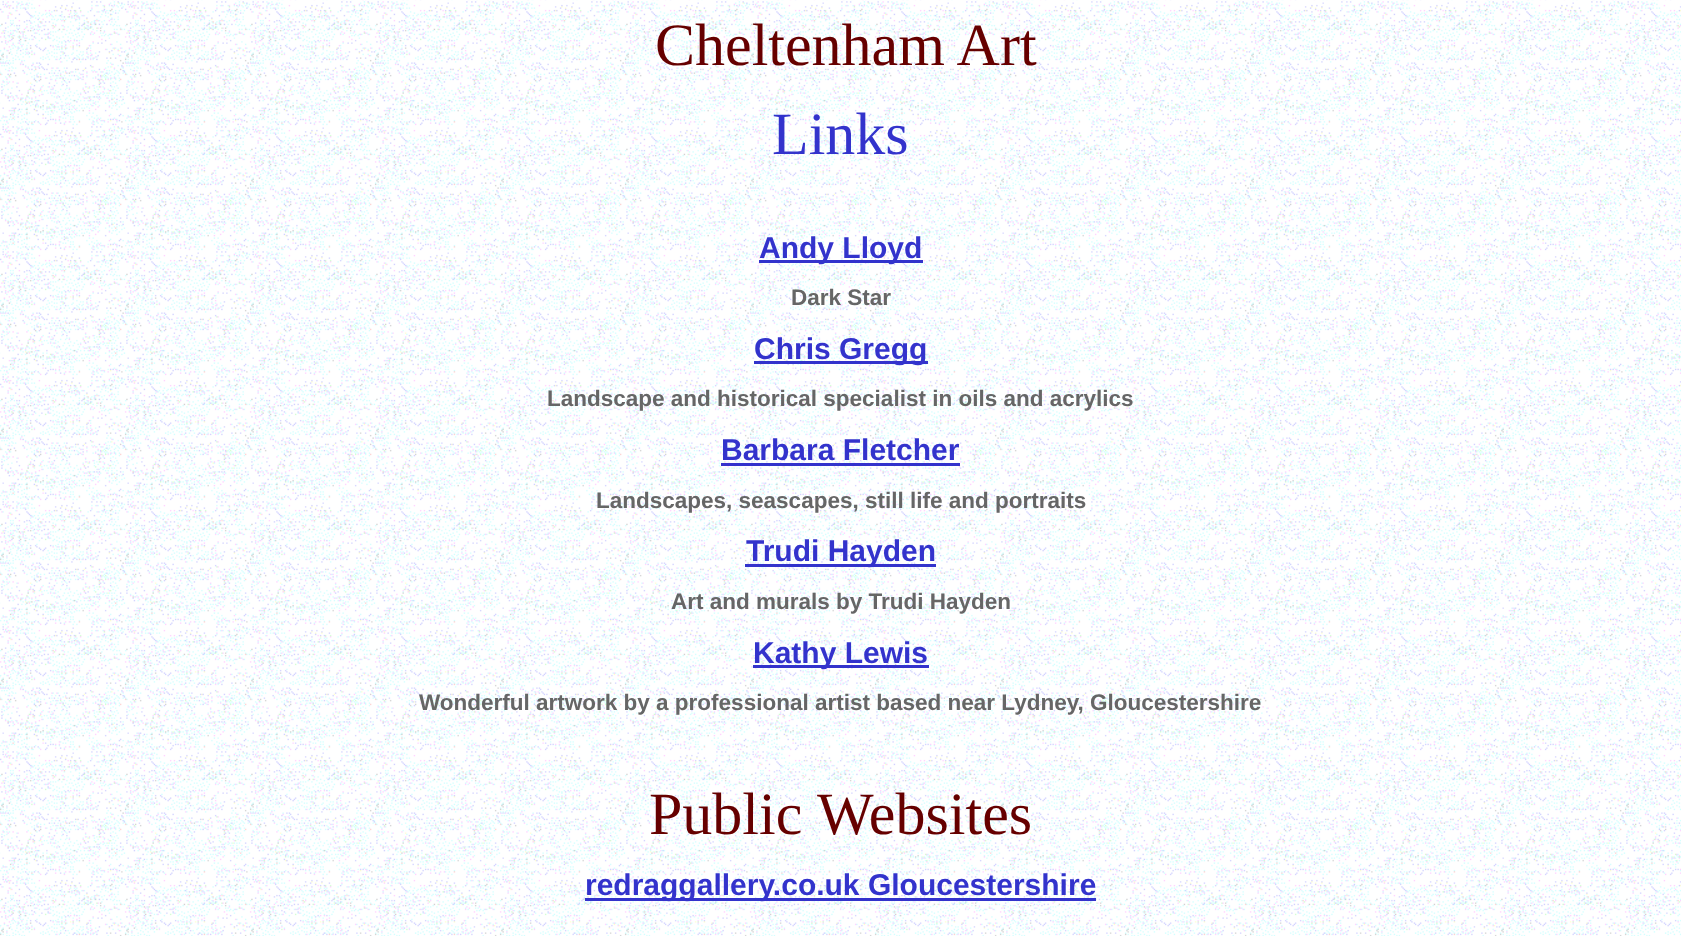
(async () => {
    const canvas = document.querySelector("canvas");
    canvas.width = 1681;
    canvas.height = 936;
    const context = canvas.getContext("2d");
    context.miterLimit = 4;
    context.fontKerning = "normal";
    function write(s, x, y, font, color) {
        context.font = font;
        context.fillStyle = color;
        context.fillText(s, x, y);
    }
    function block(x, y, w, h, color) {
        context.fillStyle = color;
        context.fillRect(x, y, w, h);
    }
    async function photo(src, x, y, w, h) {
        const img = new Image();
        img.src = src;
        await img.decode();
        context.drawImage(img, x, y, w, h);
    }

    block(0, 0, 1681, 936, "rgb(255, 255, 255)");
    await photo("media/1.png", 0, 0, 1681, 936);
    write("Cheltenham Art", 655, 65, "60px Liberation Serif", "rgb(102, 0, 0)");
    write("Links", 772, 154, "60px Liberation Serif", "rgb(51, 51, 204)");
    block(759, 260, 164, 3, "rgb(51, 51, 204)");
    write("Andy Lloyd", 759, 258, "bold 30px Liberation Sans", "rgb(51, 51, 204)");
    write("Dark Star", 791, 305, "bold 22.5px Liberation Sans", "rgb(102, 102, 102)");
    block(754, 361, 174, 3, "rgb(51, 51, 204)");
    write("Chris Gregg", 754, 359, "bold 30px Liberation Sans", "rgb(51, 51, 204)");
    write("Landscape and historical specialist in oils and acrylics", 547, 406, "bold 22.5px Liberation Sans", "rgb(102, 102, 102)");
    write("Barbara Fletcher", 721, 460, "bold 30px Liberation Sans", "rgb(51, 51, 204)");
    block(721, 463, 239, 3, "rgb(51, 51, 204)");
    write("Landscapes, seascapes, still life and portraits", 596, 508, "bold 22.5px Liberation Sans", "rgb(102, 102, 102)");
    block(745, 564, 191, 3, "rgb(51, 51, 204)");
    write("Trudi Hayden", 746, 561, "bold 30px Liberation Sans", "rgb(51, 51, 204)");
    write("Art and murals by Trudi Hayden", 671, 609, "bold 22.5px Liberation Sans", "rgb(102, 102, 102)");
    block(753, 665, 176, 3, "rgb(51, 51, 204)");
    write("Kathy Lewis", 753, 663, "bold 30px Liberation Sans", "rgb(51, 51, 204)");
    write("Wonderful artwork by a professional artist based near Lydney, Gloucestershire", 419, 710, "bold 22.5px Liberation Sans", "rgb(102, 102, 102)");
    write("Public", 649, 834, "60px Liberation Serif", "rgb(102, 0, 0)");
    write("Websites", 817, 834, "60px Liberation Serif", "rgb(102, 0, 0)");
    block(585, 898, 511, 3, "rgb(51, 51, 204)");
    write("redraggallery.co.uk Gloucestershire", 585, 895, "bold 30px Liberation Sans", "rgb(51, 51, 204)");
})();
